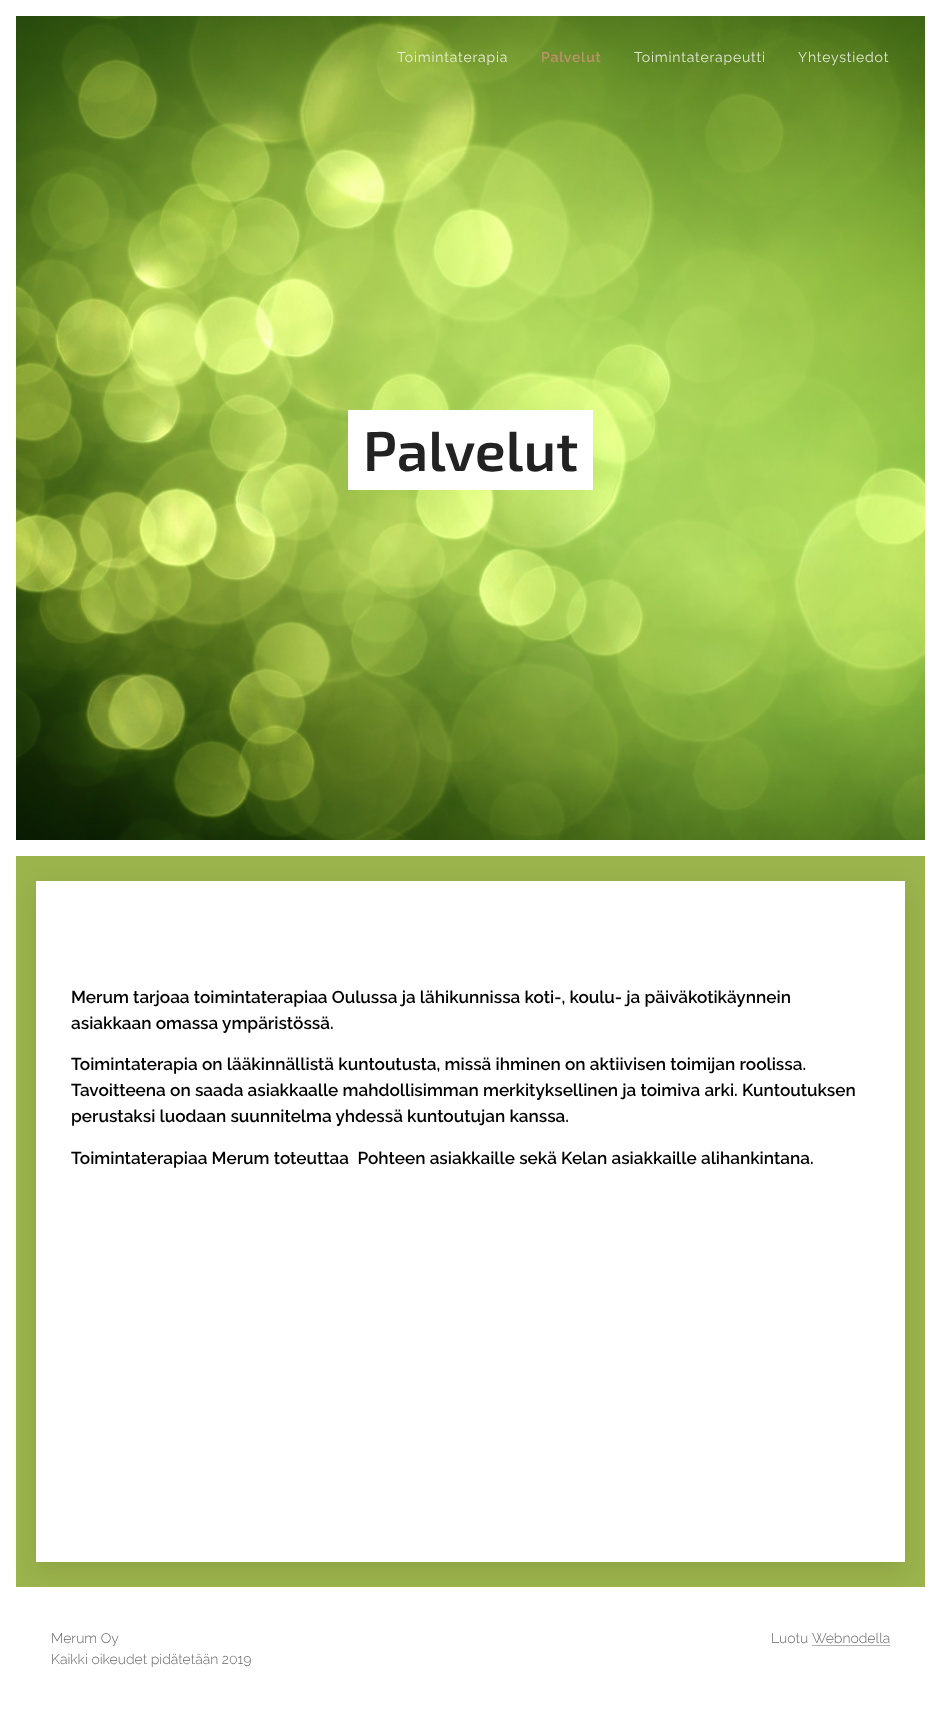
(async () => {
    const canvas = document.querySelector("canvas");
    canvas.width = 941;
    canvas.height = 1712;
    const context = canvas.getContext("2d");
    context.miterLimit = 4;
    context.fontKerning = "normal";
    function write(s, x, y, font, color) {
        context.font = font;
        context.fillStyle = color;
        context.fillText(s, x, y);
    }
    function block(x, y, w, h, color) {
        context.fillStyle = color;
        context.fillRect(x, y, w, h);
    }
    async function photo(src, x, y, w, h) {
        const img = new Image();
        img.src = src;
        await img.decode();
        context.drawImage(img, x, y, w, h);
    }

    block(0, 0, 941, 1712, "rgb(255, 255, 255)");
    await photo("media/1.png", 16, 16, 909, 824);
    context.letterSpacing = "0.8px";
    write("Toimintaterapia", 397, 62, "14px Raleway", "rgb(231, 238, 215)");
    write("Palvelut", 541, 62, "600 14px Raleway", "rgb(189, 146, 109)");
    write("Toimintaterapeutti", 634, 62, "14px Raleway", "rgb(223, 231, 211)");
    write("Yhteystiedot", 798, 62, "14px Raleway", "rgb(223, 231, 211)");
    block(363, 410, 230, 80, "rgb(255, 255, 255)");
    context.letterSpacing = "0px";
    write("Palvelut", 363, 471, "600 56px 'Exo 2'", "rgb(34, 34, 34)");
    block(348, 410, 15, 80, "rgb(255, 255, 255)");
    block(16, 856, 909, 731, "rgb(156, 180, 76)");
    context.fillStyle = "rgba(0, 0, 0, 0.1)";
    context.filter = "blur(12.5px)";
    context.beginPath();
    context.rect(36, 889, 869, 681);
    context.fill();
    context.filter = "none";
    block(36, 881, 869, 681, "rgb(255, 255, 255)");
    write("Merum tarjoaa toimintaterapiaa Oulussa ja lähikunnissa koti-, koulu- ja päiväkotikäynnein", 71, 1003, "600 17.2px Raleway", "rgb(0, 0, 0)");
    write("asiakkaan omassa ympäristössä.", 71, 1029, "600 17.2px Raleway", "rgb(0, 0, 0)");
    write("Toimintaterapia on lääkinnällistä kuntoutusta, missä ihminen on aktiivisen toimijan roolissa.", 71, 1070, "600 17.2px Raleway", "rgb(0, 0, 0)");
    write("Tavoitteena on saada asiakkaalle mahdollisimman merkityksellinen ja toimiva arki. Kuntoutuksen", 71, 1096, "600 17.2px Raleway", "rgb(0, 0, 0)");
    write("perustaksi luodaan suunnitelma yhdessä kuntoutujan kanssa.", 71, 1122, "600 17.2px Raleway", "rgb(0, 0, 0)");
    write("Toimintaterapiaa Merum toteuttaa  Pohteen asiakkaille sekä Kelan asiakkaille alihankintana.", 71, 1164, "600 17.2px Raleway", "rgb(0, 0, 0)");
    write("Merum Oy", 51, 1643, "300 14px Raleway", "rgb(102, 102, 102)");
    write("Kaikki oikeudet pidätetään 2019", 51, 1664, "300 14px Raleway", "rgb(102, 102, 102)");
    write("Luotu", 771, 1643, "300 14px Raleway", "rgb(102, 102, 102)");
    write("Webnodella", 812, 1643, "300 14px Raleway", "rgb(102, 102, 102)");
    block(812, 1645, 78, 1, "rgb(179, 179, 179)");
})();
